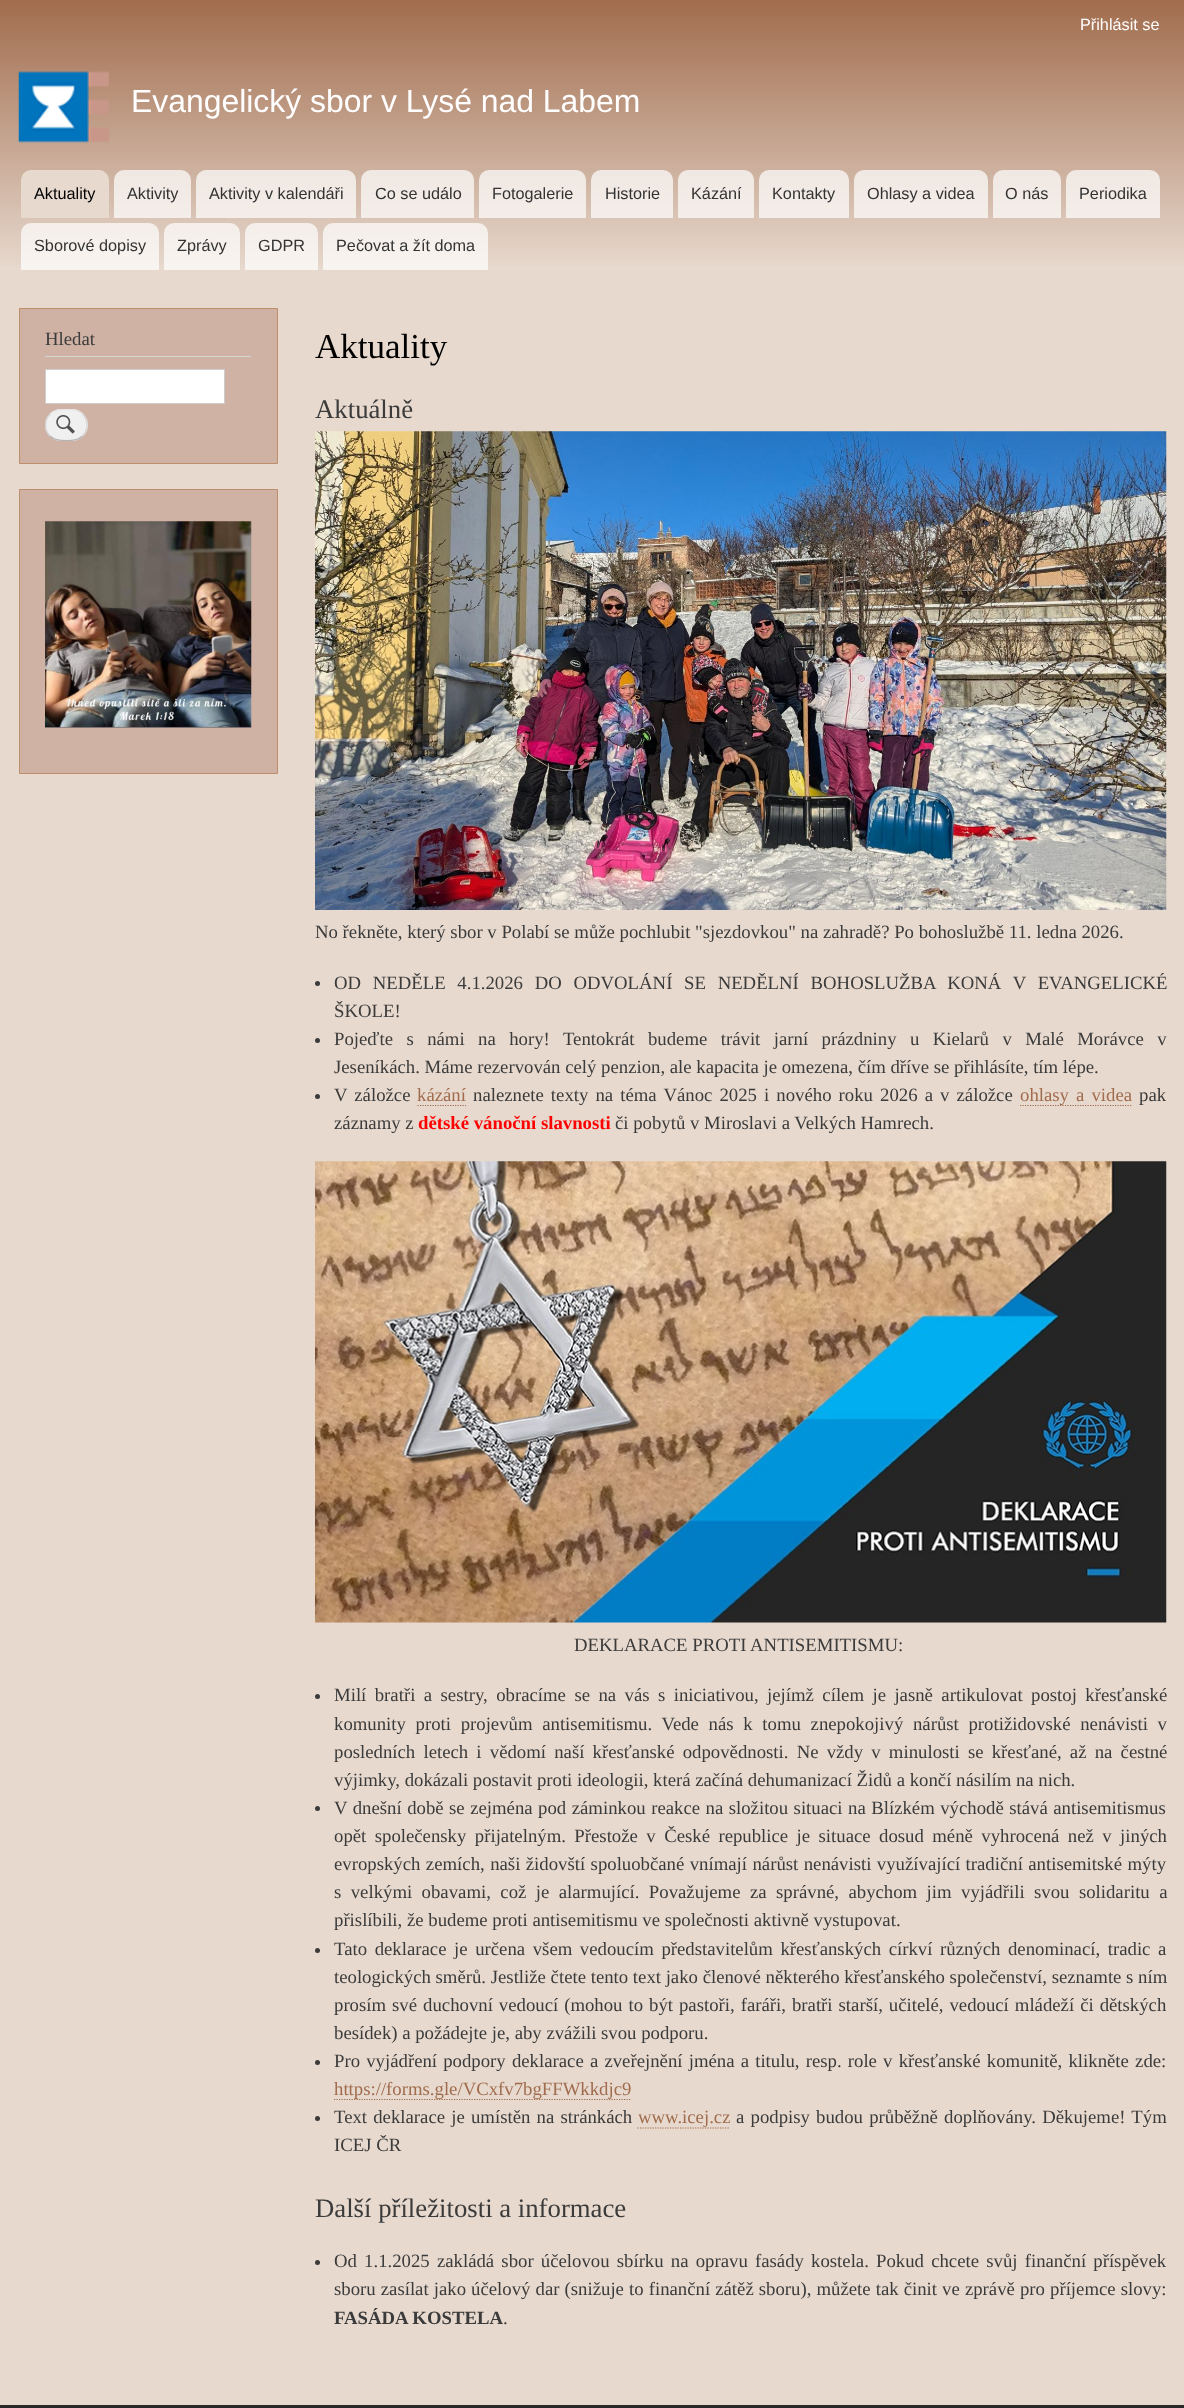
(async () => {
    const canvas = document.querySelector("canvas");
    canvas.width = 1184;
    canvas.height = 2408;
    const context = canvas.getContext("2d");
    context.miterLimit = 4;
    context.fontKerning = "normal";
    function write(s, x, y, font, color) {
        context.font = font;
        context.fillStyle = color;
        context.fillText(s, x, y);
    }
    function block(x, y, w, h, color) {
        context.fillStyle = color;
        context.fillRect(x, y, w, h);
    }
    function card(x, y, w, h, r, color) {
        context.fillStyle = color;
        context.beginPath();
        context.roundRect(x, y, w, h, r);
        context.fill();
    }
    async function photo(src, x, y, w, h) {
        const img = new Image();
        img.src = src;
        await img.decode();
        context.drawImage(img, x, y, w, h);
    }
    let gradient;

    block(0, 0, 1184, 2408, "rgb(231, 217, 206)");
    gradient = context.createLinearGradient(593, 0, 593, 270);
    gradient.addColorStop(0, "rgb(161, 108, 77)");
    gradient.addColorStop(1, "rgb(231, 217, 206)");
    context.fillStyle = gradient;
    context.fillRect(0, 0, 1184, 265);
    write("Přihlásit se", 1080, 30, "16.25px Liberation Sans", "rgb(255, 254, 255)");
    await photo("media/1.png", 18, 71, 91, 72);
    write("Evangelický sbor v Lysé nad Labem", 131, 112, "31.9px Liberation Sans", "rgb(255, 254, 255)");
    context.fillStyle = "rgb(231, 217, 206)";
    context.beginPath();
    context.roundRect(21, 170, 88, 48, [10, 10, 0, 0]);
    context.fill();
    write("Aktuality", 34, 199, "16.25px Liberation Sans", "rgb(0, 0, 0)");
    context.fillStyle = "rgba(255, 255, 255, 0.7)";
    context.beginPath();
    context.roundRect(114, 170, 77, 48, [10, 10, 0, 0]);
    context.fill();
    write("Aktivity", 127, 199, "16.25px Liberation Sans", "rgb(51, 51, 51)");
    context.fillStyle = "rgba(255, 255, 255, 0.7)";
    context.beginPath();
    context.roundRect(196, 170, 160, 48, [10, 10, 0, 0]);
    context.fill();
    write("Aktivity v kalendáři", 209, 199, "16.25px Liberation Sans", "rgb(51, 51, 51)");
    context.fillStyle = "rgba(255, 255, 255, 0.7)";
    context.beginPath();
    context.roundRect(361, 170, 113, 48, [10, 10, 0, 0]);
    context.fill();
    write("Co se událo", 375, 199, "16.25px Liberation Sans", "rgb(51, 51, 51)");
    context.fillStyle = "rgba(255, 255, 255, 0.7)";
    context.beginPath();
    context.roundRect(479, 170, 107, 48, [10, 10, 0, 0]);
    context.fill();
    write("Fotogalerie", 492, 199, "16.25px Liberation Sans", "rgb(51, 51, 51)");
    context.fillStyle = "rgba(255, 255, 255, 0.7)";
    context.beginPath();
    context.roundRect(591, 170, 82, 48, [10, 10, 0, 0]);
    context.fill();
    write("Historie", 605, 199, "16.25px Liberation Sans", "rgb(51, 51, 51)");
    context.fillStyle = "rgba(255, 255, 255, 0.7)";
    context.beginPath();
    context.roundRect(678, 170, 76, 48, [10, 10, 0, 0]);
    context.fill();
    write("Kázání", 691, 199, "16.25px Liberation Sans", "rgb(51, 51, 51)");
    context.fillStyle = "rgba(255, 255, 255, 0.7)";
    context.beginPath();
    context.roundRect(759, 170, 90, 48, [10, 10, 0, 0]);
    context.fill();
    write("Kontakty", 772, 199, "16.25px Liberation Sans", "rgb(51, 51, 51)");
    context.fillStyle = "rgba(255, 255, 255, 0.7)";
    context.beginPath();
    context.roundRect(854, 170, 134, 48, [10, 10, 0, 0]);
    context.fill();
    write("Ohlasy a videa", 867, 199, "16.25px Liberation Sans", "rgb(51, 51, 51)");
    context.fillStyle = "rgba(255, 255, 255, 0.7)";
    context.beginPath();
    context.roundRect(993, 170, 68, 48, [10, 10, 0, 0]);
    context.fill();
    write("O nás", 1005, 199, "16.25px Liberation Sans", "rgb(51, 51, 51)");
    context.fillStyle = "rgba(255, 255, 255, 0.7)";
    context.beginPath();
    context.roundRect(1066, 170, 94, 48, [10, 10, 0, 0]);
    context.fill();
    write("Periodika", 1079, 199, "16.25px Liberation Sans", "rgb(51, 51, 51)");
    context.fillStyle = "rgba(255, 255, 255, 0.7)";
    context.beginPath();
    context.roundRect(21, 223, 138, 47, [10, 10, 0, 0]);
    context.fill();
    write("Sborové dopisy", 34, 251, "16.25px Liberation Sans", "rgb(51, 51, 51)");
    context.fillStyle = "rgba(255, 255, 255, 0.7)";
    context.beginPath();
    context.roundRect(164, 223, 76, 47, [10, 10, 0, 0]);
    context.fill();
    write("Zprávy", 177, 251, "16.25px Liberation Sans", "rgb(51, 51, 51)");
    context.fillStyle = "rgba(255, 255, 255, 0.7)";
    context.beginPath();
    context.roundRect(245, 223, 73, 47, [10, 10, 0, 0]);
    context.fill();
    write("GDPR", 258, 251, "16.25px Liberation Sans", "rgb(51, 51, 51)");
    context.fillStyle = "rgba(255, 255, 255, 0.7)";
    context.beginPath();
    context.roundRect(323, 223, 165, 47, [10, 10, 0, 0]);
    context.fill();
    write("Pečovat a žít doma", 336, 251, "16.25px Liberation Sans", "rgb(51, 51, 51)");
    context.fillStyle = "rgb(207, 178, 164)";
    context.beginPath();
    context.rect(19.5, 308.5, 258, 155);
    context.fill();
    context.strokeStyle = "rgb(190, 141, 105)";
    context.stroke();
    block(45, 356, 206, 1, "rgb(214, 214, 214)");
    write("Hledat", 45, 345, "18.75px Liberation Serif", "rgb(59, 59, 59)");
    context.fillStyle = "rgb(255, 255, 255)";
    context.beginPath();
    context.rect(45.5, 369.5, 179, 34);
    context.fill();
    context.strokeStyle = "rgb(204, 204, 204)";
    context.stroke();
    card(45, 409, 43, 32, 16, "rgb(240, 240, 240)");
    await photo("media/2.png", 56, 415, 19, 19);
    context.beginPath();
    context.moveTo(50, 414);
    context.bezierCurveTo(54.5, 409.5, 60.5, 409.5, 66, 409.5);
    context.bezierCurveTo(72, 409.5, 78, 409.5, 82.5, 414);
    context.strokeStyle = "rgb(228, 228, 228)";
    context.lineWidth = 1.2;
    context.stroke();
    context.beginPath();
    context.moveTo(82.5, 414);
    context.bezierCurveTo(88.5, 420, 88.5, 430, 82.5, 436);
    context.strokeStyle = "rgb(210, 210, 210)";
    context.stroke();
    context.beginPath();
    context.moveTo(82.5, 436);
    context.bezierCurveTo(78, 440.5, 72, 440.5, 66.5, 440.5);
    context.bezierCurveTo(60.5, 440.5, 54.5, 440.5, 50, 436);
    context.strokeStyle = "rgb(180, 180, 180)";
    context.stroke();
    context.beginPath();
    context.moveTo(50, 436);
    context.bezierCurveTo(44, 430, 44, 420, 50, 414);
    context.strokeStyle = "rgb(210, 210, 210)";
    context.stroke();
    context.fillStyle = "rgb(207, 178, 164)";
    context.beginPath();
    context.rect(19.5, 489.5, 258, 284);
    context.fill();
    context.strokeStyle = "rgb(190, 141, 105)";
    context.lineWidth = 1;
    context.stroke();
    await photo("media/3.png", 45, 521, 207, 207);
    write("Aktuality", 315, 358, "35px Liberation Serif", "rgb(0, 0, 0)");
    write("Aktuálně", 315, 418, "26.75px Liberation Serif", "rgb(59, 59, 59)");
    await photo("media/4.png", 315, 431, 852, 479);
    write("No řekněte, který sbor v Polabí se může pochlubit \"sjezdovkou\" na zahradě? Po bohoslužbě 11. ledna 2026.", 315, 938, "18.75px Liberation Serif", "rgb(59, 59, 59)");
    context.beginPath();
    context.arc(317.5, 983.5, 2.5, 0, Math.PI * 2);
    context.fill();
    context.wordSpacing = "7px";
    write("OD NEDĚLE 4.1.2026 DO ODVOLÁNÍ SE NEDĚLNÍ BOHOSLUŽBA KONÁ V EVANGELICKÉ", 334, 989, "18.75px Liberation Serif", "rgb(59, 59, 59)");
    context.wordSpacing = "0px";
    write("ŠKOLE!", 334, 1017, "18.75px Liberation Serif", "rgb(59, 59, 59)");
    context.beginPath();
    context.arc(317.5, 1040.5, 2.5, 0, Math.PI * 2);
    context.fill();
    context.wordSpacing = "8.75px";
    write("Pojeďte s námi na hory! Tentokrát budeme trávit jarní prázdniny u Kielarů v Malé Morávce v", 334, 1045, "18.75px Liberation Serif", "rgb(59, 59, 59)");
    context.wordSpacing = "0px";
    write("Jeseníkách. Máme rezervován celý penzion, ale kapacita je omezena, čím dříve se přihlásíte, tím lépe.", 334, 1073, "18.75px Liberation Serif", "rgb(59, 59, 59)");
    context.beginPath();
    context.arc(317.5, 1096.5, 2.5, 0, Math.PI * 2);
    context.fill();
    context.wordSpacing = "2.4px";
    write("V záložce", 334, 1101, "18.75px Liberation Serif", "rgb(59, 59, 59)");
    context.wordSpacing = "0px";
    write("kázání", 417, 1101, "18.75px Liberation Serif", "rgb(161, 108, 77)");
    context.beginPath();
    context.moveTo(417.5, 1105.5);
    context.lineTo(466, 1105.5);
    context.strokeStyle = "rgb(161, 108, 77)";
    context.lineWidth = 1.2;
    context.setLineDash([1.25, 1.25]);
    context.stroke();
    context.wordSpacing = "2.4px";
    write("naleznete texty na téma Vánoc 2025 i nového roku 2026 a v záložce", 473, 1101, "18.75px Liberation Serif", "rgb(59, 59, 59)");
    context.beginPath();
    context.moveTo(1020, 1105.5);
    context.lineTo(1132.5, 1105.5);
    context.stroke();
    write("ohlasy a videa", 1020, 1101, "18.75px Liberation Serif", "rgb(161, 108, 77)");
    context.wordSpacing = "0px";
    write("pak", 1139, 1101, "18.75px Liberation Serif", "rgb(59, 59, 59)");
    write("záznamy z", 334, 1129, "18.75px Liberation Serif", "rgb(59, 59, 59)");
    write("dětské vánoční slavnosti", 418, 1129, "bold 18.75px Liberation Serif", "rgb(255, 0, 0)");
    write("či pobytů v Miroslavi a Velkých Hamrech.", 615, 1129, "18.75px Liberation Serif", "rgb(59, 59, 59)");
    await photo("media/5.png", 315, 1161, 852, 462);
    write("DEKLARACE PROTI ANTISEMITISMU:", 574, 1651, "18.75px Liberation Serif", "rgb(59, 59, 59)");
    context.beginPath();
    context.arc(317.5, 1696.5, 2.5, 0, Math.PI * 2);
    context.fill();
    context.wordSpacing = "3.75px";
    write("Milí bratři a sestry, obracíme se na vás s iniciativou, jejímž cílem je jasně artikulovat postoj křesťanské", 334, 1701, "18.75px Liberation Serif", "rgb(59, 59, 59)");
    context.wordSpacing = "5px";
    write("komunity proti projevům antisemitismu. Vede nás k tomu znepokojivý nárůst protižidovské nenávisti v", 334, 1730, "18.75px Liberation Serif", "rgb(59, 59, 59)");
    context.wordSpacing = "3.5px";
    write("posledních letech i vědomí naší křesťanské odpovědnosti. Ne vždy v minulosti se křesťané, až na čestné", 334, 1758, "18.75px Liberation Serif", "rgb(59, 59, 59)");
    context.wordSpacing = "0px";
    write("výjimky, dokázali postavit proti ideologii, která začíná dehumanizací Židů a končí násilím na nich.", 334, 1786, "18.75px Liberation Serif", "rgb(59, 59, 59)");
    context.beginPath();
    context.arc(317.5, 1808.5, 2.5, 0, Math.PI * 2);
    context.fill();
    context.wordSpacing = "0.8px";
    write("V dnešní době se zejména pod záminkou reakce na složitou situaci na Blízkém východě stává antisemitismus", 334, 1814, "18.75px Liberation Serif", "rgb(59, 59, 59)");
    context.wordSpacing = "3.75px";
    write("opět společensky přijatelným. Přestože v České republice je situace dosud méně vyhrocená než v jiných", 334, 1842, "18.75px Liberation Serif", "rgb(59, 59, 59)");
    context.wordSpacing = "0.75px";
    write("evropských zemích, naši židovští spoluobčané vnímají nárůst nenávisti využívající tradiční antisemitské mýty", 334, 1870, "18.75px Liberation Serif", "rgb(59, 59, 59)");
    context.wordSpacing = "4.75px";
    write("s velkými obavami, což je alarmující. Považujeme za správné, abychom jim vyjádřili svou solidaritu a", 334, 1898, "18.75px Liberation Serif", "rgb(59, 59, 59)");
    context.wordSpacing = "0px";
    write("přislíbili, že budeme proti antisemitismu ve společnosti aktivně vystupovat.", 334, 1926, "18.75px Liberation Serif", "rgb(59, 59, 59)");
    context.beginPath();
    context.arc(317.5, 1950.5, 2.5, 0, Math.PI * 2);
    context.fill();
    context.wordSpacing = "2.9px";
    write("Tato deklarace je určena všem vedoucím představitelům křesťanských církví různých denominací, tradic a", 334, 1955, "18.75px Liberation Serif", "rgb(59, 59, 59)");
    context.wordSpacing = "0px";
    write("teologických směrů. Jestliže čtete tento text jako členové některého křesťanského společenství, seznamte s ním", 334, 1983, "18.75px Liberation Serif", "rgb(59, 59, 59)");
    context.wordSpacing = "1.3px";
    write("prosím své duchovní vedoucí (mohou to být pastoři, faráři, bratři starší, učitelé, vedoucí mládeží či dětských", 334, 2011, "18.75px Liberation Serif", "rgb(59, 59, 59)");
    context.wordSpacing = "0px";
    write("besídek) a požádejte je, aby zvážili svou podporu.", 334, 2039, "18.75px Liberation Serif", "rgb(59, 59, 59)");
    context.beginPath();
    context.arc(317.5, 2062.5, 2.5, 0, Math.PI * 2);
    context.fill();
    context.wordSpacing = "1.5px";
    write("Pro vyjádření podpory deklarace a zveřejnění jména a titulu, resp. role v křesťanské komunitě, klikněte zde:", 334, 2067, "18.75px Liberation Serif", "rgb(59, 59, 59)");
    context.beginPath();
    context.moveTo(334, 2099.5);
    context.lineTo(631, 2099.5);
    context.stroke();
    context.wordSpacing = "0px";
    write("https://forms.gle/VCxfv7bgFFWkkdjc9", 334, 2095, "18.75px Liberation Serif", "rgb(161, 108, 77)");
    context.fillStyle = "rgb(59, 59, 59)";
    context.beginPath();
    context.arc(317.5, 2118.5, 2.5, 0, Math.PI * 2);
    context.fill();
    context.wordSpacing = "1.5px";
    write("Text deklarace je umístěn na stránkách", 334, 2123, "18.75px Liberation Serif", "rgb(59, 59, 59)");
    context.wordSpacing = "0px";
    write("www.icej.cz", 638, 2123, "18.75px Liberation Serif", "rgb(161, 108, 77)");
    context.beginPath();
    context.moveTo(637.5, 2128);
    context.lineTo(730, 2128);
    context.stroke();
    context.wordSpacing = "1.5px";
    write("a podpisy budou průběžně doplňovány. Děkujeme! Tým", 736, 2123, "18.75px Liberation Serif", "rgb(59, 59, 59)");
    context.wordSpacing = "0px";
    write("ICEJ ČR", 334, 2151, "18.75px Liberation Serif", "rgb(59, 59, 59)");
    write("Další příležitosti a informace", 315, 2217, "26.75px Liberation Serif", "rgb(59, 59, 59)");
    context.beginPath();
    context.arc(317.5, 2262.5, 2.5, 0, Math.PI * 2);
    context.fill();
    context.wordSpacing = "2.5px";
    write("Od 1.1.2025 zakládá sbor účelovou sbírku na opravu fasády kostela. Pokud chcete svůj finanční příspěvek", 334, 2267, "18.75px Liberation Serif", "rgb(59, 59, 59)");
    context.wordSpacing = "0.4px";
    write("sboru zasílat jako účelový dar (snižuje to finanční zátěž sboru), můžete tak činit ve zprávě pro příjemce slovy:", 334, 2295, "18.75px Liberation Serif", "rgb(59, 59, 59)");
    context.wordSpacing = "0px";
    write("FASÁDA KOSTELA", 334, 2324, "bold 18.75px Liberation Serif", "rgb(59, 59, 59)");
    write(".", 503, 2324, "18.75px Liberation Serif", "rgb(59, 59, 59)");
    block(0, 2405, 1184, 3, "rgb(41, 41, 41)");
})();
